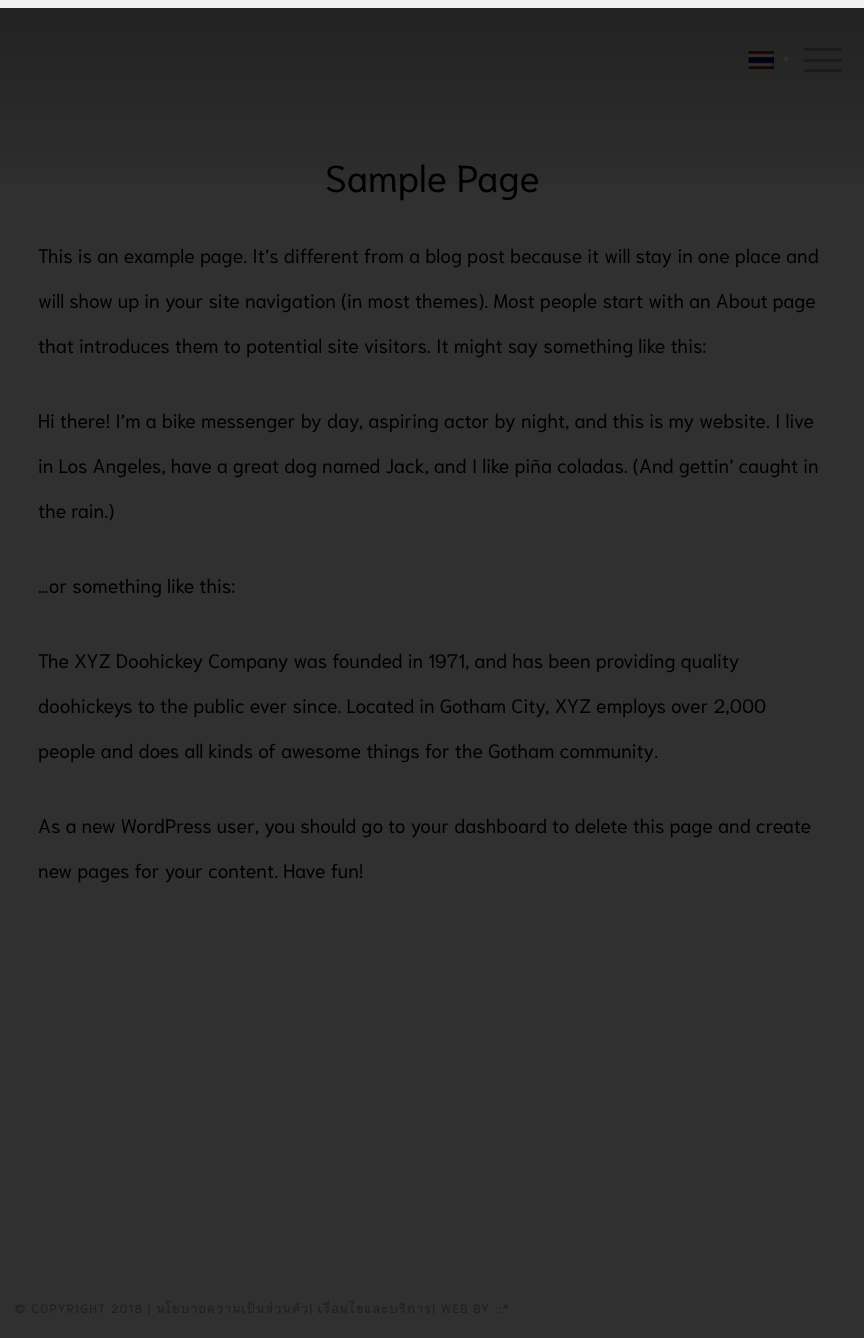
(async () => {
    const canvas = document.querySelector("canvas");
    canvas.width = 864;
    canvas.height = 1338;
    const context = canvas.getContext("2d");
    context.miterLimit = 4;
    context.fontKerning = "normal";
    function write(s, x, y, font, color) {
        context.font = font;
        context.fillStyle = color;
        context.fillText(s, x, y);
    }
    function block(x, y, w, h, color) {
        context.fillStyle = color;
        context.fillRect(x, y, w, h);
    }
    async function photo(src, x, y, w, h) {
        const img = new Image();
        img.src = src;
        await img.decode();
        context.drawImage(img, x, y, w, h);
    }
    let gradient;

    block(0, 0, 864, 1338, "rgb(48, 48, 48)");
    block(0, 0, 864, 8, "rgb(241, 241, 241)");
    write("Sample Page", 325, 192, "37.5px Niramit", "rgb(0, 0, 0)");
    gradient = context.createLinearGradient(432, 225, 432, 0);
    gradient.addColorStop(0, "rgba(0, 0, 0, 0)");
    gradient.addColorStop(1, "rgba(0, 0, 0, 0.3)");
    context.fillStyle = gradient;
    context.fillRect(0, 8, 864, 177);
    await photo("media/1.png", 748, 51, 26, 18);
    context.fillStyle = "rgb(48, 48, 48)";
    context.beginPath();
    context.moveTo(783, 57);
    context.lineTo(789, 57);
    context.lineTo(786, 63);
    context.closePath();
    context.fill();
    block(804, 59, 38, 3, "rgb(27, 27, 27)");
    block(804, 48, 38, 3, "rgb(27, 27, 27)");
    block(804, 69, 38, 3, "rgb(27, 27, 27)");
    write("This is an example page. It’s different from a blog post because it will stay in one place and", 38, 263, "19.5px Niramit", "rgb(0, 0, 0)");
    write("will show up in your site navigation (in most themes). Most people start with an About page", 38, 308, "19.5px Niramit", "rgb(0, 0, 0)");
    write("that introduces them to potential site visitors. It might say something like this:", 38, 353, "19.5px Niramit", "rgb(0, 0, 0)");
    write("Hi there! I’m a bike messenger by day, aspiring actor by night, and this is my website. I live", 38, 428, "19.5px Niramit", "rgb(0, 0, 0)");
    write("in Los Angeles, have a great dog named Jack, and I like piña coladas. (And gettin’ caught in", 38, 473, "19.5px Niramit", "rgb(0, 0, 0)");
    write("the rain.)", 38, 518, "19.5px Niramit", "rgb(0, 0, 0)");
    write("…or something like this:", 38, 593, "19.5px Niramit", "rgb(0, 0, 0)");
    write("The XYZ Doohickey Company was founded in 1971, and has been providing quality", 38, 668, "19.5px Niramit", "rgb(0, 0, 0)");
    write("doohickeys to the public ever since. Located in Gotham City, XYZ employs over 2,000", 38, 713, "19.5px Niramit", "rgb(0, 0, 0)");
    write("people and does all kinds of awesome things for the Gotham community.", 38, 758, "19.5px Niramit", "rgb(0, 0, 0)");
    write("As a new WordPress user, you should go to your dashboard to delete this page and create", 38, 833, "19.5px Niramit", "rgb(0, 0, 0)");
    write("new pages for your content. Have fun!", 38, 878, "19.5px Niramit", "rgb(0, 0, 0)");
    context.letterSpacing = "1.5px";
    write("© COPYRIGHT 2018 | นโยบายความเป็นส่วนตัว| เงื่อนไขและบริการ| WEB BY ::*", 15, 1313, "12px Niramit", "rgb(29, 29, 29)");
})();
